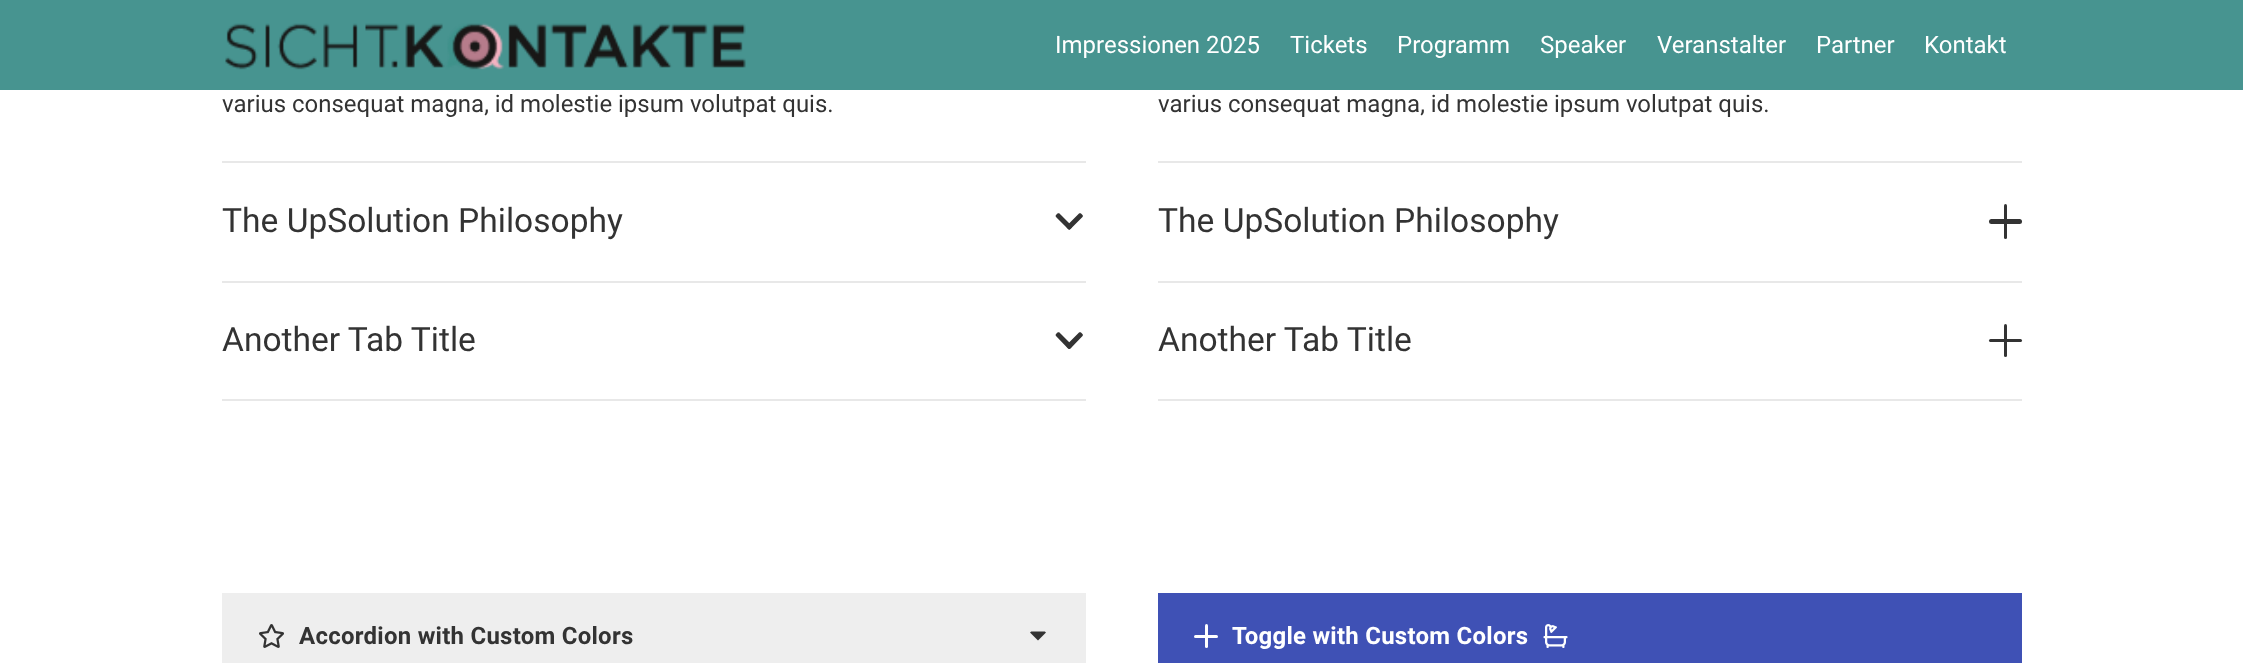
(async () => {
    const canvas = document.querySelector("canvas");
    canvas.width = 2243;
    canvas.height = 663;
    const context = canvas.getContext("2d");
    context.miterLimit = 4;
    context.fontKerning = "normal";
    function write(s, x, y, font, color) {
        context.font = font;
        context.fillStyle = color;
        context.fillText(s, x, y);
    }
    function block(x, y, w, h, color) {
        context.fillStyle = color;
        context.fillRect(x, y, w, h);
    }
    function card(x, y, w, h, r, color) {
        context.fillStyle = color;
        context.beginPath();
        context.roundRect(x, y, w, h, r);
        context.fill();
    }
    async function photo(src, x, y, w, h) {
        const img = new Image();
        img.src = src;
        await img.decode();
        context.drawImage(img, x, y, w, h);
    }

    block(0, 0, 2243, 663, "rgb(255, 255, 255)");
    block(0, 0, 2243, 90, "rgb(71, 148, 144)");
    await photo("media/1.png", 225, 23, 521, 47);
    write("Impressionen 2025", 1055, 53, "24px Roboto", "rgb(255, 255, 255)");
    write("Tickets", 1290, 53, "24px Roboto", "rgb(255, 255, 255)");
    write("Programm", 1397, 53, "24px Roboto", "rgb(255, 255, 255)");
    write("Speaker", 1540, 53, "24px Roboto", "rgb(255, 255, 255)");
    write("Veranstalter", 1657, 53, "24px Roboto", "rgb(255, 255, 255)");
    write("Partner", 1816, 53, "24px Roboto", "rgb(255, 255, 255)");
    write("Kontakt", 1924, 53, "24px Roboto", "rgb(255, 255, 255)");
    write("varius consequat magna, id molestie ipsum volutpat quis.", 222, 112, "24px Roboto", "rgb(51, 51, 51)");
    block(222, 161, 864, 2, "rgb(232, 232, 232)");
    write("The UpSolution Philosophy", 222, 232, "33.6px Roboto", "rgb(51, 51, 51)");
    context.beginPath();
    context.moveTo(1056, 215);
    context.lineTo(1057.5, 213.5);
    context.bezierCurveTo(1058, 213, 1059, 213, 1059.5, 213.5);
    context.lineTo(1071.5, 225.5);
    context.bezierCurveTo(1072, 226, 1072, 227, 1071.5, 228);
    context.lineTo(1070, 229);
    context.bezierCurveTo(1069.5, 230, 1068.5, 230, 1068, 229);
    context.lineTo(1056, 217);
    context.bezierCurveTo(1055.5, 216.5, 1055.5, 215.5, 1056, 215);
    context.closePath();
    context.fill();
    context.beginPath();
    context.moveTo(1081, 213.5);
    context.lineTo(1082.5, 215);
    context.bezierCurveTo(1083, 215.5, 1083, 216.5, 1082.5, 217);
    context.lineTo(1070.5, 229);
    context.bezierCurveTo(1070, 230, 1069, 230, 1068.5, 229);
    context.lineTo(1067, 228);
    context.bezierCurveTo(1066.5, 227, 1066.5, 226, 1067, 225.5);
    context.lineTo(1079, 213.5);
    context.bezierCurveTo(1079.5, 213, 1080.5, 213, 1081, 213.5);
    context.closePath();
    context.fill();
    block(222, 281, 864, 2, "rgb(232, 232, 232)");
    block(222, 399, 864, 2, "rgb(232, 232, 232)");
    write("Another Tab Title", 222, 351, "33.6px Roboto", "rgb(51, 51, 51)");
    context.beginPath();
    context.moveTo(1056, 334);
    context.lineTo(1057.5, 332.5);
    context.bezierCurveTo(1058, 332, 1059, 332, 1059.5, 332.5);
    context.lineTo(1071.5, 344.5);
    context.bezierCurveTo(1072, 345.5, 1072, 346.5, 1071.5, 347);
    context.lineTo(1070, 348.5);
    context.bezierCurveTo(1069.5, 349, 1068.5, 349, 1068, 348.5);
    context.lineTo(1056, 336);
    context.bezierCurveTo(1055.5, 335.5, 1055.5, 334.5, 1056, 334);
    context.closePath();
    context.fill();
    context.beginPath();
    context.moveTo(1081, 332.5);
    context.lineTo(1082.5, 334);
    context.bezierCurveTo(1083, 334.5, 1083, 335.5, 1082.5, 336);
    context.lineTo(1070.5, 348.5);
    context.bezierCurveTo(1070, 349, 1069, 349, 1068.5, 348.5);
    context.lineTo(1067, 347);
    context.bezierCurveTo(1066.5, 346.5, 1066.5, 345.5, 1067, 344.5);
    context.lineTo(1079, 332.5);
    context.bezierCurveTo(1079.5, 332, 1080.5, 332, 1081, 332.5);
    context.closePath();
    context.fill();
    write("varius consequat magna, id molestie ipsum volutpat quis.", 1158, 112, "24px Roboto", "rgb(51, 51, 51)");
    block(1158, 161, 864, 2, "rgb(232, 232, 232)");
    write("The UpSolution Philosophy", 1158, 232, "33.6px Roboto", "rgb(51, 51, 51)");
    card(2004, 204, 3, 35, 1.5, "rgb(51, 51, 51)");
    card(1989, 219, 33, 5, 2.5, "rgb(51, 51, 51)");
    block(1158, 281, 864, 2, "rgb(232, 232, 232)");
    block(1158, 399, 864, 2, "rgb(232, 232, 232)");
    write("Another Tab Title", 1158, 351, "33.6px Roboto", "rgb(51, 51, 51)");
    card(2004, 324, 3, 33, 1.5, "rgb(51, 51, 51)");
    card(1989, 339, 33, 3, 1.5, "rgb(51, 51, 51)");
    block(222, 593, 864, 70, "rgb(238, 238, 238)");
    await photo("media/2.png", 259, 624, 25, 24);
    context.letterSpacing = "0.25px";
    write("Accordion with Custom Colors", 299, 644, "bold 24px Roboto", "rgb(51, 51, 51)");
    context.beginPath();
    context.moveTo(1032, 631.5);
    context.bezierCurveTo(1031, 631.5, 1030.5, 632, 1030, 632.5);
    context.lineTo(1038, 640.5);
    context.lineTo(1046, 632.5);
    context.bezierCurveTo(1045.5, 632, 1045, 631.5, 1044, 631.5);
    context.closePath();
    context.fill();
    block(1158, 593, 864, 70, "rgb(63, 81, 181)");
    card(1205, 624, 3, 24, 1.5, "rgb(255, 255, 255)");
    card(1194, 635, 24, 3, 1.5, "rgb(255, 255, 255)");
    write("Toggle with Custom Colors", 1232, 644, "bold 24px Roboto", "rgb(255, 255, 255)");
    await photo("media/3.png", 1543, 624, 25, 24);
})();
